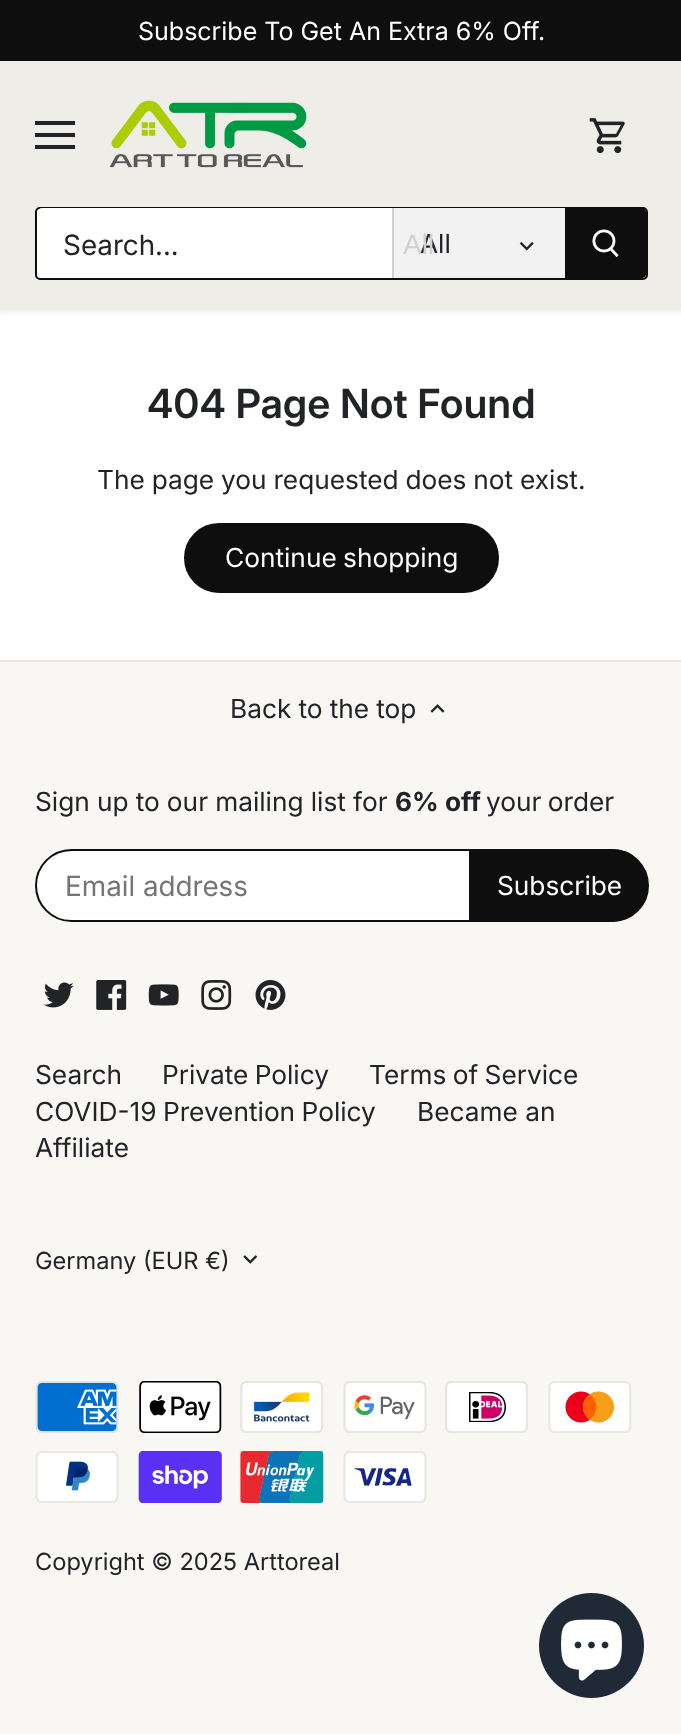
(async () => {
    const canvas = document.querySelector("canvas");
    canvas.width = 681;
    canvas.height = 1734;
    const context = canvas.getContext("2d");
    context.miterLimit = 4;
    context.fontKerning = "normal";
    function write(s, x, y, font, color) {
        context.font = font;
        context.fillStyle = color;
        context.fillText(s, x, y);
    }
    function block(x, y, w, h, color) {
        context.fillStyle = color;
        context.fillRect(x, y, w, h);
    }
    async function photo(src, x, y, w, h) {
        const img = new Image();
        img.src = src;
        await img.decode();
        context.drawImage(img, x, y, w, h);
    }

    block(0, 0, 681, 1734, "rgb(249, 247, 244)");
    block(0, 310, 681, 350, "rgb(255, 255, 255)");
    context.fillStyle = "rgba(0, 0, 0, 0.08)";
    context.filter = "blur(2.5px)";
    context.beginPath();
    context.rect(-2, 60, 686, 252);
    context.fill();
    context.filter = "none";
    block(0, 0, 681, 61, "rgb(14, 14, 14)");
    write("Subscribe To Get An Extra 6% Off.", 138, 40, "25px Inter", "rgb(255, 255, 255)");
    block(0, 61, 681, 249, "rgb(239, 237, 232)");
    block(35, 121, 40, 4, "rgb(33, 35, 38)");
    block(35, 133, 40, 4, "rgb(33, 35, 38)");
    block(35, 145, 40, 4, "rgb(33, 35, 38)");
    await photo("media/1.png", 109, 100, 198, 68);
    await photo("media/2.png", 589, 118, 36, 36);
    context.beginPath();
    context.roundRect(36, 208, 611, 71, 4);
    context.strokeStyle = "rgb(14, 14, 14)";
    context.lineWidth = 2;
    context.stroke();
    context.save();
    context.beginPath();
    context.roundRect(37, 208, 609, 70, 4);
    context.clip();
    context.fillStyle = "rgb(255, 255, 255)";
    context.beginPath();
    context.roundRect(37, 208, 355, 70, [5, 0, 0, 5]);
    context.fill();
    context.restore();
    write("Search...", 63, 255, "28px 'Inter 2'", "rgb(33, 35, 38)");
    block(394, 208, 171, 70, "rgb(242, 242, 242)");
    block(392, 208, 2, 70, "rgb(208, 209, 209)");
    write("All", 420, 253, "26.25px Inter", "rgb(33, 35, 38)");
    write("All", 403, 254, "28px Liberation Sans", "rgb(209, 209, 210)");
    await photo("media/3.png", 519, 242, 15, 9);
    context.fillStyle = "rgb(14, 14, 14)";
    context.beginPath();
    context.roundRect(565, 208, 81, 70, [0, 4, 4, 0]);
    context.fill();
    await photo("media/4.png", 592, 229, 27, 28);
    write("404 Page Not Found", 147, 418, "600 40.25px Inter", "rgb(33, 35, 38)");
    context.wordSpacing = "-0.5px";
    write("The page you requested does not exist.", 97, 489, "26.25px Inter", "rgb(33, 35, 38)");
    context.fillStyle = "rgb(14, 14, 14)";
    context.beginPath();
    context.roundRect(186, 525, 311, 66, 33);
    context.fill();
    context.lineWidth = 4;
    context.stroke();
    context.wordSpacing = "-1px";
    write("Continue shopping", 225, 567, "26.25px Inter", "rgb(255, 255, 255)");
    block(0, 660, 681, 2, "rgb(237, 232, 221)");
    context.wordSpacing = "-0.25px";
    write("Back to the top", 230, 718, "26.25px Inter", "rgb(33, 35, 38)");
    await photo("media/5.png", 430, 704, 15, 9);
    write("Sign up to our mailing list for", 35, 811, "26.25px Inter", "rgb(33, 35, 38)");
    context.wordSpacing = "0px";
    write("6% off", 395, 811, "bold 26.25px Inter", "rgb(33, 35, 38)");
    context.wordSpacing = "-1px";
    write("your order", 486, 811, "26.25px Inter", "rgb(33, 35, 38)");
    context.fillStyle = "rgb(255, 255, 255)";
    context.beginPath();
    context.roundRect(36, 850, 611, 71, 35.5);
    context.fill();
    context.lineWidth = 2;
    context.stroke();
    context.wordSpacing = "0px";
    write("Email address", 65, 896, "28px 'Inter 2'", "rgb(117, 117, 117)");
    context.fillStyle = "rgb(14, 14, 14)";
    context.beginPath();
    context.roundRect(470, 850, 178, 71, [0, 35.5, 35.5, 0]);
    context.fill();
    context.stroke();
    write("Subscribe", 497, 895, "26.25px Inter", "rgb(255, 255, 255)");
    await photo("media/6.png", 44, 982, 30, 26);
    await photo("media/7.png", 96, 980, 31, 30);
    await photo("media/8.png", 148, 984, 31, 22);
    await photo("media/9.png", 201, 980, 31, 30);
    await photo("media/10.png", 255, 980, 31, 30);
    write("Search", 35, 1084, "26.25px Inter", "rgb(33, 35, 38)");
    context.wordSpacing = "-1px";
    write("Private Policy", 162, 1084, "26.25px Inter", "rgb(33, 35, 38)");
    write("Terms of Service", 369, 1084, "26.25px Inter", "rgb(33, 35, 38)");
    write("COVID-19 Prevention Policy", 35, 1121, "26.25px Inter", "rgb(33, 35, 38)");
    context.wordSpacing = "0px";
    write("Became an", 417, 1121, "26.25px Inter", "rgb(33, 35, 38)");
    write("Affiliate", 35, 1157, "26.25px Inter", "rgb(33, 35, 38)");
    write("Germany (EUR €)", 35, 1269, "23.6px Inter", "rgb(33, 35, 38)");
    await photo("media/11.png", 243, 1255, 15, 9);
    await photo("media/12.png", 35, 1381, 84, 52);
    await photo("media/13.png", 139, 1381, 83, 52);
    await photo("media/14.png", 240, 1381, 84, 52);
    await photo("media/15.png", 343, 1381, 84, 52);
    await photo("media/16.png", 445, 1381, 83, 52);
    await photo("media/17.png", 548, 1381, 84, 52);
    await photo("media/18.png", 35, 1451, 84, 52);
    await photo("media/19.png", 138, 1451, 84, 52);
    await photo("media/20.png", 240, 1451, 84, 52);
    await photo("media/21.png", 343, 1451, 84, 52);
    write("Copyright © 2025 Arttoreal", 35, 1570, "23.6px Inter", "rgb(33, 35, 38)");
    context.fillStyle = "rgb(32, 42, 54)";
    context.beginPath();
    context.arc(591.5, 1645.5, 52.5, 0, Math.PI * 2);
    context.fill();
    await photo("media/22.png", 561, 1619, 61, 62);
})();
